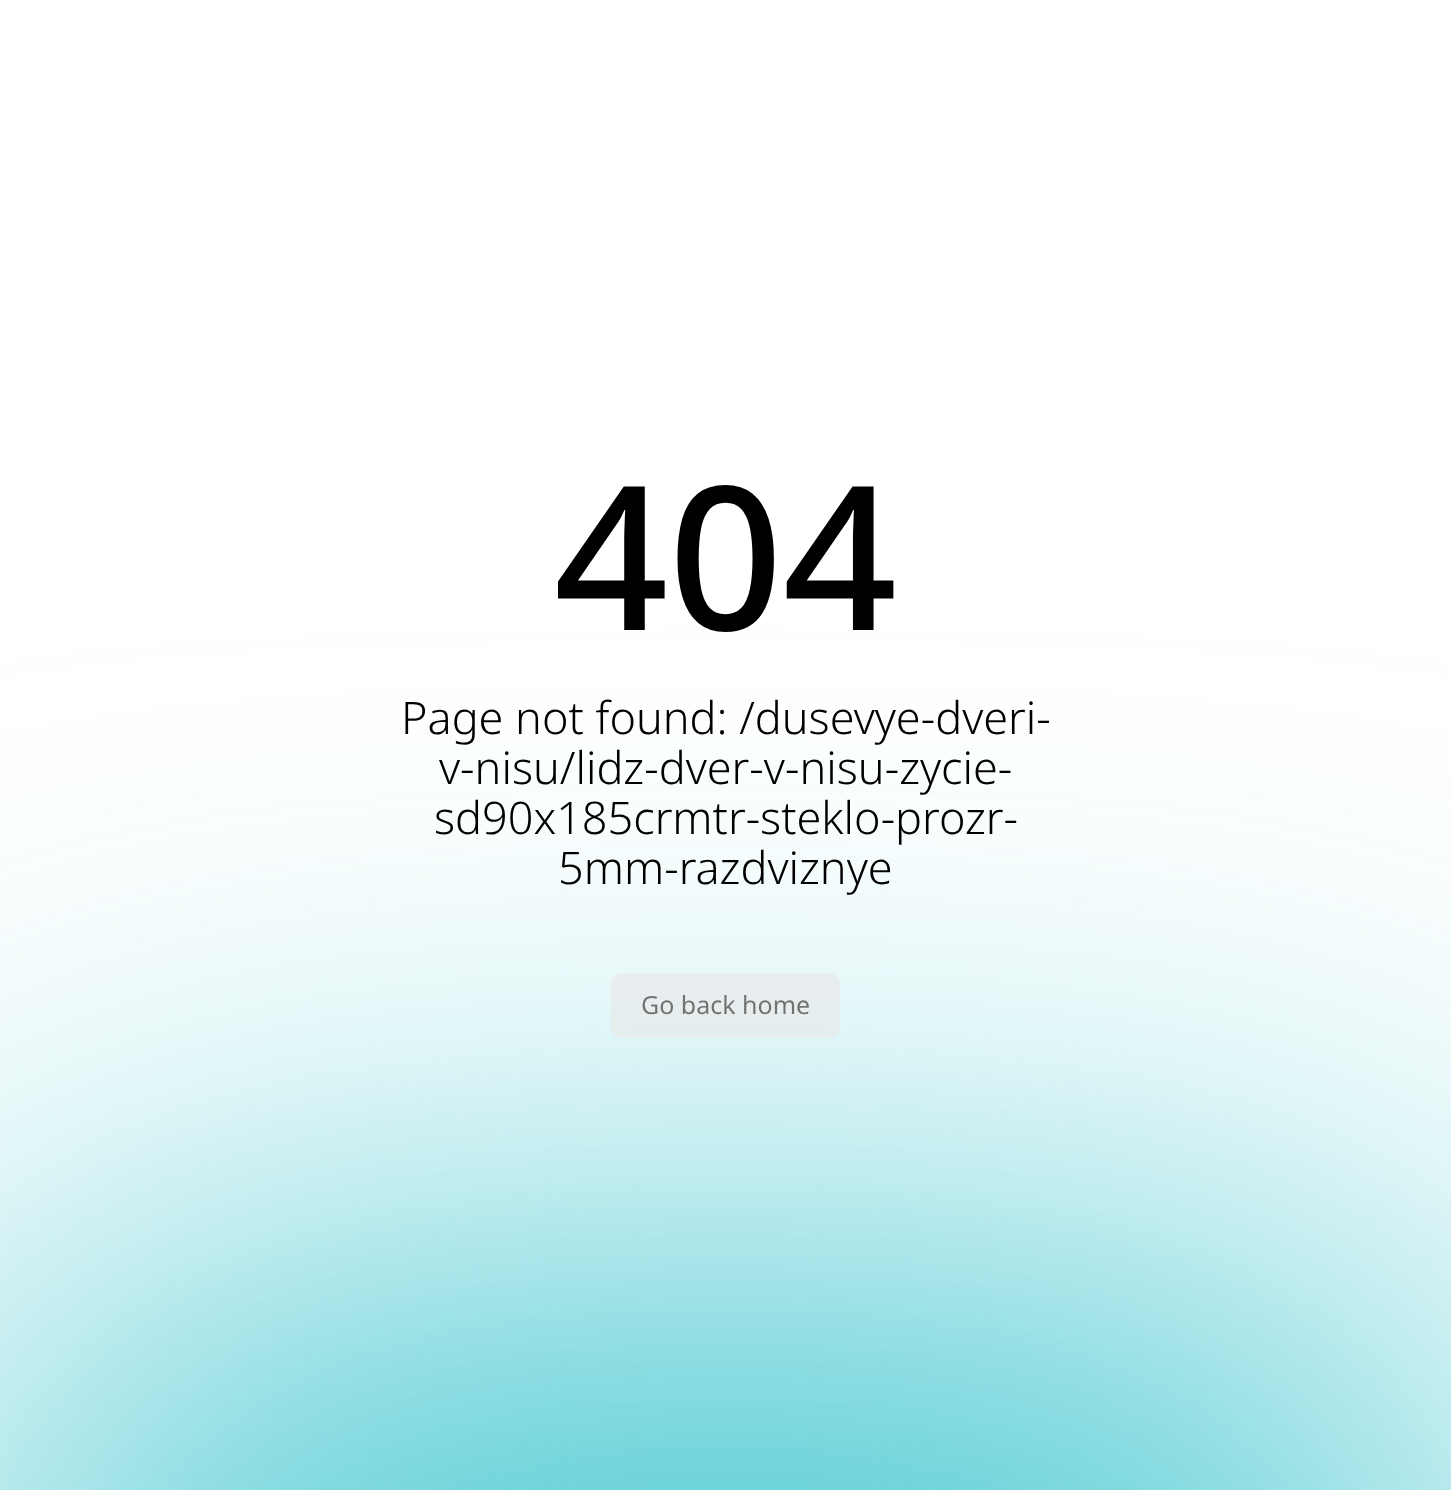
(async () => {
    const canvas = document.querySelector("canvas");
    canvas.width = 1451;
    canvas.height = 1490;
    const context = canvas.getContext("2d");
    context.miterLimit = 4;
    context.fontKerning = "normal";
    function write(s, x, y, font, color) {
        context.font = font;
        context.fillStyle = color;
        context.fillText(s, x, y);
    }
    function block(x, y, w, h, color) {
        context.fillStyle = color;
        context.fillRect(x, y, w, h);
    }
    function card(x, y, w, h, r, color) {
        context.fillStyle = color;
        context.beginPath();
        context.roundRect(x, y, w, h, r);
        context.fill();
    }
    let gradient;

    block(0, 0, 1451, 1490, "rgb(255, 255, 255)");
    context.fillStyle = "rgb(27, 187, 198)";
    context.filter = "blur(298px)";
    context.beginPath();
    context.rect(0, 1341, 1451, 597);
    context.fill();
    context.filter = "none";
    write("404", 554, 630, "500 200px Noto Sans", "rgb(0, 0, 0)");
    write("Page not found: /dusevye-dveri-", 401, 734, "300 45px Noto Sans", "rgb(0, 0, 0)");
    write("v-nisu/lidz-dver-v-nisu-zycie-", 439, 784, "300 45px Noto Sans", "rgb(0, 0, 0)");
    write("sd90x185crmtr-steklo-prozr-", 434, 834, "300 45px Noto Sans", "rgb(0, 0, 0)");
    write("5mm-razdviznye", 558, 884, "300 45px Noto Sans", "rgb(0, 0, 0)");
    card(611, 973, 229, 65, 10, "rgba(255, 255, 255, 0.3)");
    write("Go back home", 641, 1014, "25px Noto Sans", "rgb(0, 0, 0)");
    gradient = context.createLinearGradient(611, 1005, 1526, 1005);
    gradient.addColorStop(0, "rgba(226, 226, 226, 0.5)");
    gradient.addColorStop(0.25, "rgba(226, 226, 226, 0.5)");
    gradient.addColorStop(0.5, "rgba(0, 220, 130, 0.5)");
    gradient.addColorStop(0.75, "rgba(54, 228, 218, 0.5)");
    gradient.addColorStop(1, "rgba(0, 71, 225, 0.5)");
    context.fillStyle = gradient;
    context.beginPath();
    context.roundRect(611, 973, 229, 65, 10);
    context.fill();
})();
